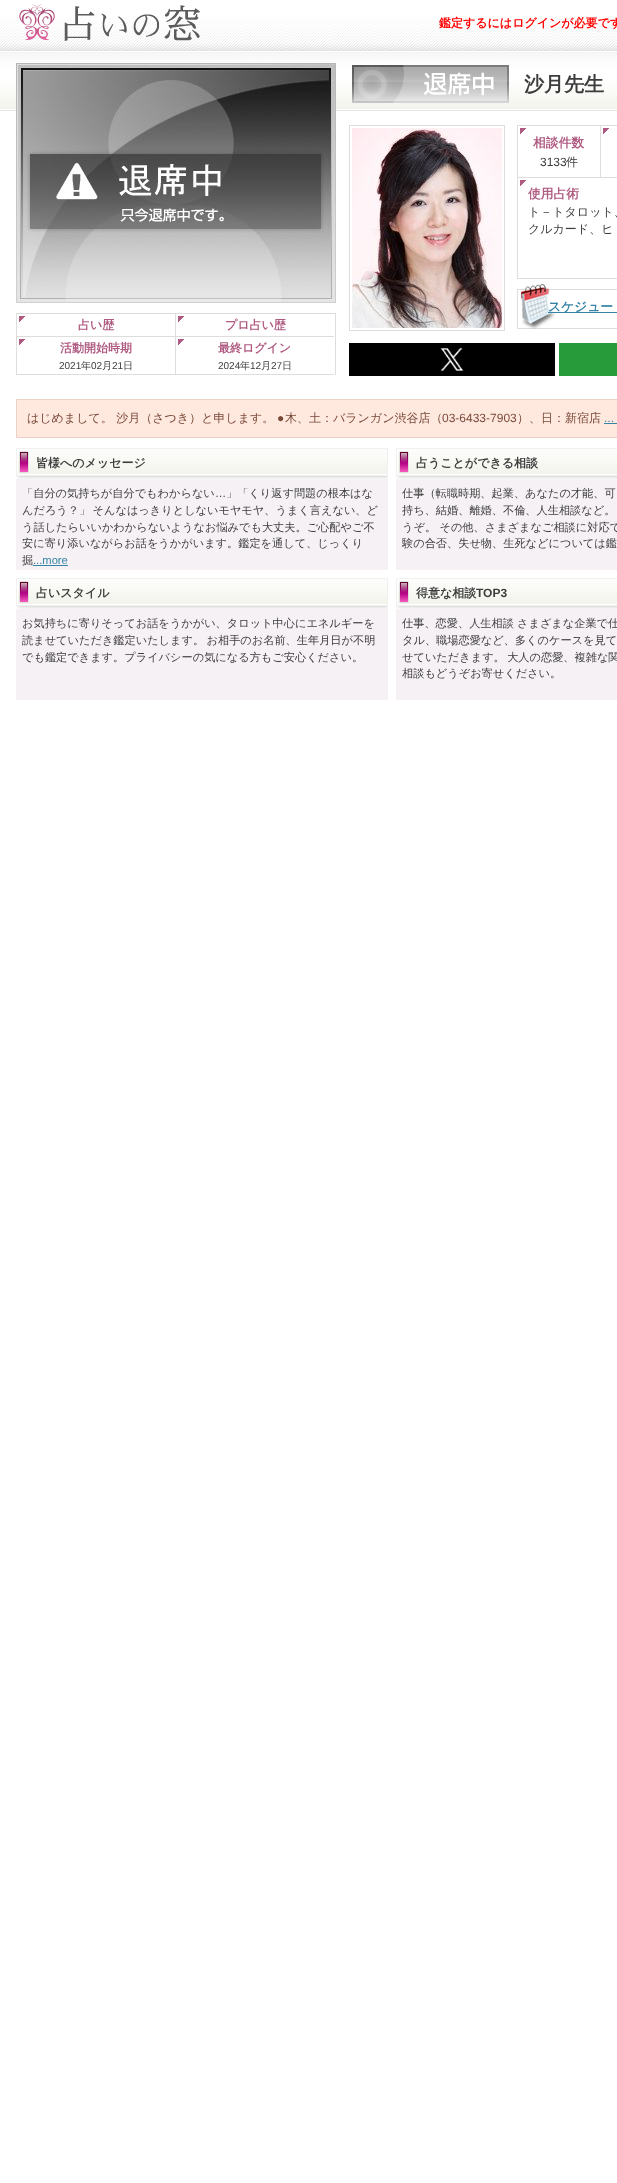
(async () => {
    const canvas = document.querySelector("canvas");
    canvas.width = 617;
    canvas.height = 2183;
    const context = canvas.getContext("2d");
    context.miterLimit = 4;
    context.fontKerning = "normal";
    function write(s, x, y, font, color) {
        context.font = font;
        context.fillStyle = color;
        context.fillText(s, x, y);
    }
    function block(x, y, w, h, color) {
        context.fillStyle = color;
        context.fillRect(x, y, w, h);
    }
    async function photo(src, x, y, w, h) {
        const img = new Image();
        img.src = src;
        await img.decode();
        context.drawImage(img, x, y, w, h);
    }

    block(0, 0, 617, 2183, "rgb(255, 255, 255)");
    await photo("media/1.png", 0, 17, 617, 94);
    await photo("media/2.png", 19, 4, 181, 37);
    write("鑑定するにはログインが必要です", 439, 27, "bold 12px WenQuanYi Zen Hei", "rgb(255, 0, 0)");
    await photo("media/3.png", 352, 65, 157, 38);
    write("沙月先生", 524, 91, "bold 20px WenQuanYi Zen Hei", "rgb(61, 61, 61)");
    context.strokeStyle = "rgb(221, 221, 221)";
    context.strokeRect(349.5, 125.5, 155, 205);
    await photo("media/4.png", 352, 128, 150, 200);
    block(517, 125, 100, 1, "rgb(221, 221, 221)");
    block(517, 278, 100, 1, "rgb(221, 221, 221)");
    await photo("media/5.png", 520, 128, 6, 6);
    block(517, 126, 1, 51, "rgb(221, 221, 221)");
    write("相談件数", 533, 147, "bold 12.75px WenQuanYi Zen Hei", "rgb(175, 90, 129)");
    write("3133", 540, 166, "12px Liberation Sans", "rgb(61, 61, 61)");
    write("件", 566, 166, "500 12px WenQuanYi Zen Hei", "rgb(61, 61, 61)");
    await photo("media/5.png", 603, 128, 6, 6);
    block(600, 126, 1, 51, "rgb(221, 221, 221)");
    await photo("media/5.png", 520, 180, 6, 6);
    block(517, 177, 100, 1, "rgb(221, 221, 221)");
    block(517, 177, 1, 101, "rgb(221, 221, 221)");
    write("使用占術", 528, 198, "bold 12.75px WenQuanYi Zen Hei", "rgb(175, 90, 129)");
    write("ト－トタロット、", 528, 216, "500 12px WenQuanYi Zen Hei", "rgb(61, 61, 61)");
    write("クルカード、ヒ", 528, 233, "500 12px WenQuanYi Zen Hei", "rgb(61, 61, 61)");
    await photo("media/6.png", 517, 284, 100, 45);
    block(548, 312, 69, 1, "rgb(53, 132, 165)");
    write("スケジュー", 548, 311, "bold 12.75px WenQuanYi Zen Hei", "rgb(53, 132, 165)");
    await photo("media/7.png", 349, 343, 206, 33);
    block(559, 343, 58, 33, "rgb(39, 155, 58)");
    await photo("media/8.png", 16, 63, 320, 240);
    block(16, 313, 320, 1, "rgb(221, 221, 221)");
    block(335, 313, 1, 62, "rgb(221, 221, 221)");
    await photo("media/5.png", 19, 316, 6, 6);
    block(16, 336, 318, 1, "rgb(221, 221, 221)");
    block(16, 314, 1, 23, "rgb(221, 221, 221)");
    write("占い歴", 78, 329, "bold 12px WenQuanYi Zen Hei", "rgb(175, 90, 129)");
    await photo("media/5.png", 178, 316, 6, 6);
    block(175, 314, 1, 23, "rgb(221, 221, 221)");
    write("プロ占い歴", 225, 329, "bold 12px WenQuanYi Zen Hei", "rgb(175, 90, 129)");
    await photo("media/5.png", 19, 339, 6, 6);
    block(16, 374, 318, 1, "rgb(221, 221, 221)");
    block(16, 337, 1, 38, "rgb(221, 221, 221)");
    write("活動開始時期", 60, 352, "bold 12px WenQuanYi Zen Hei", "rgb(175, 90, 129)");
    write("2021", 59, 369, "10px Liberation Sans", "rgb(61, 61, 61)");
    write("年", 81, 369, "500 10px WenQuanYi Zen Hei", "rgb(61, 61, 61)");
    write("02", 91, 369, "10px Liberation Sans", "rgb(61, 61, 61)");
    write("月", 102, 369, "500 10px WenQuanYi Zen Hei", "rgb(61, 61, 61)");
    write("21", 112, 369, "10px Liberation Sans", "rgb(61, 61, 61)");
    write("日", 123, 369, "500 10px WenQuanYi Zen Hei", "rgb(61, 61, 61)");
    await photo("media/5.png", 178, 339, 6, 6);
    block(175, 337, 1, 38, "rgb(221, 221, 221)");
    write("最終ログイン", 218, 352, "bold 12px WenQuanYi Zen Hei", "rgb(175, 90, 129)");
    write("2024", 218, 369, "10px Liberation Sans", "rgb(61, 61, 61)");
    write("年", 240, 369, "500 10px WenQuanYi Zen Hei", "rgb(61, 61, 61)");
    write("12", 250, 369, "10px Liberation Sans", "rgb(61, 61, 61)");
    write("月", 261, 369, "500 10px WenQuanYi Zen Hei", "rgb(61, 61, 61)");
    write("27", 271, 369, "10px Liberation Sans", "rgb(61, 61, 61)");
    write("日", 282, 369, "500 10px WenQuanYi Zen Hei", "rgb(61, 61, 61)");
    context.fillStyle = "rgb(255, 233, 223)";
    context.beginPath();
    context.rect(16.5, 399.5, 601, 38);
    context.fill();
    context.strokeStyle = "rgb(236, 208, 196)";
    context.stroke();
    write("はじめまして。 沙月（さつき）と申します。", 27, 422, "500 12px WenQuanYi Zen Hei", "rgb(121, 74, 58)");
    write("●", 277, 422, "12px Liberation Sans", "rgb(121, 74, 58)");
    write("木、土：バランガン渋谷店（", 285, 422, "500 12px WenQuanYi Zen Hei", "rgb(121, 74, 58)");
    write("03-6433-7903", 442, 422, "12px Liberation Sans", "rgb(121, 74, 58)");
    write("）、日：新宿店", 517, 422, "500 12px WenQuanYi Zen Hei", "rgb(121, 74, 58)");
    write("...", 604, 422, "12px Liberation Sans", "rgb(53, 132, 165)");
    block(604, 423, 13, 1, "rgb(53, 132, 165)");
    block(16, 479, 372, 91, "rgb(246, 241, 245)");
    await photo("media/9.png", 16, 448, 372, 31);
    write("皆様へのメッセージ", 36, 467, "bold 12px WenQuanYi Zen Hei", "rgb(61, 61, 61)");
    write("「自分の気持ちが自分でもわからない", 22, 497, "500 11.2px WenQuanYi Zen Hei", "rgb(61, 61, 61)");
    write("…", 215, 497, "11.2px Liberation Sans", "rgb(61, 61, 61)");
    write("」「くり返す問題の根本はな", 226, 497, "500 11.2px WenQuanYi Zen Hei", "rgb(61, 61, 61)");
    context.wordSpacing = "-1px";
    write("んだろう？」 そんなはっきりとしないモヤモヤ、うまく言えない、ど", 22, 514, "500 11.2px WenQuanYi Zen Hei", "rgb(61, 61, 61)");
    context.wordSpacing = "0px";
    write("う話したらいいかわからないようなお悩みでも大丈夫。ご心配やご不", 22, 531, "500 11.2px WenQuanYi Zen Hei", "rgb(61, 61, 61)");
    write("安に寄り添いながらお話をうかがいます。鑑定を通して、じっくり", 22, 547, "500 11.2px WenQuanYi Zen Hei", "rgb(61, 61, 61)");
    write("掘", 22, 564, "500 11.2px WenQuanYi Zen Hei", "rgb(61, 61, 61)");
    write("...more", 33, 564, "11.2px Liberation Sans", "rgb(53, 132, 165)");
    block(33, 565, 35, 1, "rgb(53, 132, 165)");
    block(396, 479, 221, 91, "rgb(246, 241, 245)");
    await photo("media/10.png", 396, 448, 221, 31);
    write("占うことができる相談", 416, 467, "bold 12px WenQuanYi Zen Hei", "rgb(61, 61, 61)");
    write("仕事（転職時期、起業、あなたの才能、可", 402, 497, "500 11.2px WenQuanYi Zen Hei", "rgb(61, 61, 61)");
    write("持ち、結婚、離婚、不倫、人生相談など。", 402, 514, "500 11.2px WenQuanYi Zen Hei", "rgb(61, 61, 61)");
    write("うぞ。 その他、さまざまなご相談に対応で", 402, 531, "500 11.2px WenQuanYi Zen Hei", "rgb(61, 61, 61)");
    write("験の合否、失せ物、生死などについては鑑", 402, 547, "500 11.2px WenQuanYi Zen Hei", "rgb(61, 61, 61)");
    block(16, 609, 372, 91, "rgb(246, 241, 245)");
    await photo("media/9.png", 16, 578, 372, 31);
    write("占いスタイル", 36, 597, "bold 12px WenQuanYi Zen Hei", "rgb(61, 61, 61)");
    write("お気持ちに寄りそってお話をうかがい、タロット中心にエネルギーを", 22, 627, "500 11.2px WenQuanYi Zen Hei", "rgb(61, 61, 61)");
    context.wordSpacing = "-1px";
    write("読ませていただき鑑定いたします。 お相手のお名前、生年月日が不明", 22, 644, "500 11.2px WenQuanYi Zen Hei", "rgb(61, 61, 61)");
    context.wordSpacing = "0px";
    write("でも鑑定できます。プライバシーの気になる方もご安心ください。", 22, 661, "500 11.2px WenQuanYi Zen Hei", "rgb(61, 61, 61)");
    block(396, 609, 221, 91, "rgb(246, 241, 245)");
    await photo("media/10.png", 396, 578, 221, 31);
    write("得意な相談", 416, 597, "bold 12px WenQuanYi Zen Hei", "rgb(61, 61, 61)");
    write("TOP3", 476, 597, "bold 12px Liberation Sans", "rgb(61, 61, 61)");
    write("仕事、恋愛、人生相談", 402, 627, "500 11.2px WenQuanYi Zen Hei", "rgb(61, 61, 61)");
    write("さまざまな企業で仕", 517, 627, "500 11.2px WenQuanYi Zen Hei", "rgb(61, 61, 61)");
    write("タル、職場恋愛など、多くのケースを見て", 402, 644, "500 11.2px WenQuanYi Zen Hei", "rgb(61, 61, 61)");
    context.wordSpacing = "-1px";
    write("せていただきます。 大人の恋愛、複雑な関", 402, 661, "500 11.2px WenQuanYi Zen Hei", "rgb(61, 61, 61)");
    context.wordSpacing = "0px";
    write("相談もどうぞお寄せください。", 402, 677, "500 11.2px WenQuanYi Zen Hei", "rgb(61, 61, 61)");
})();
